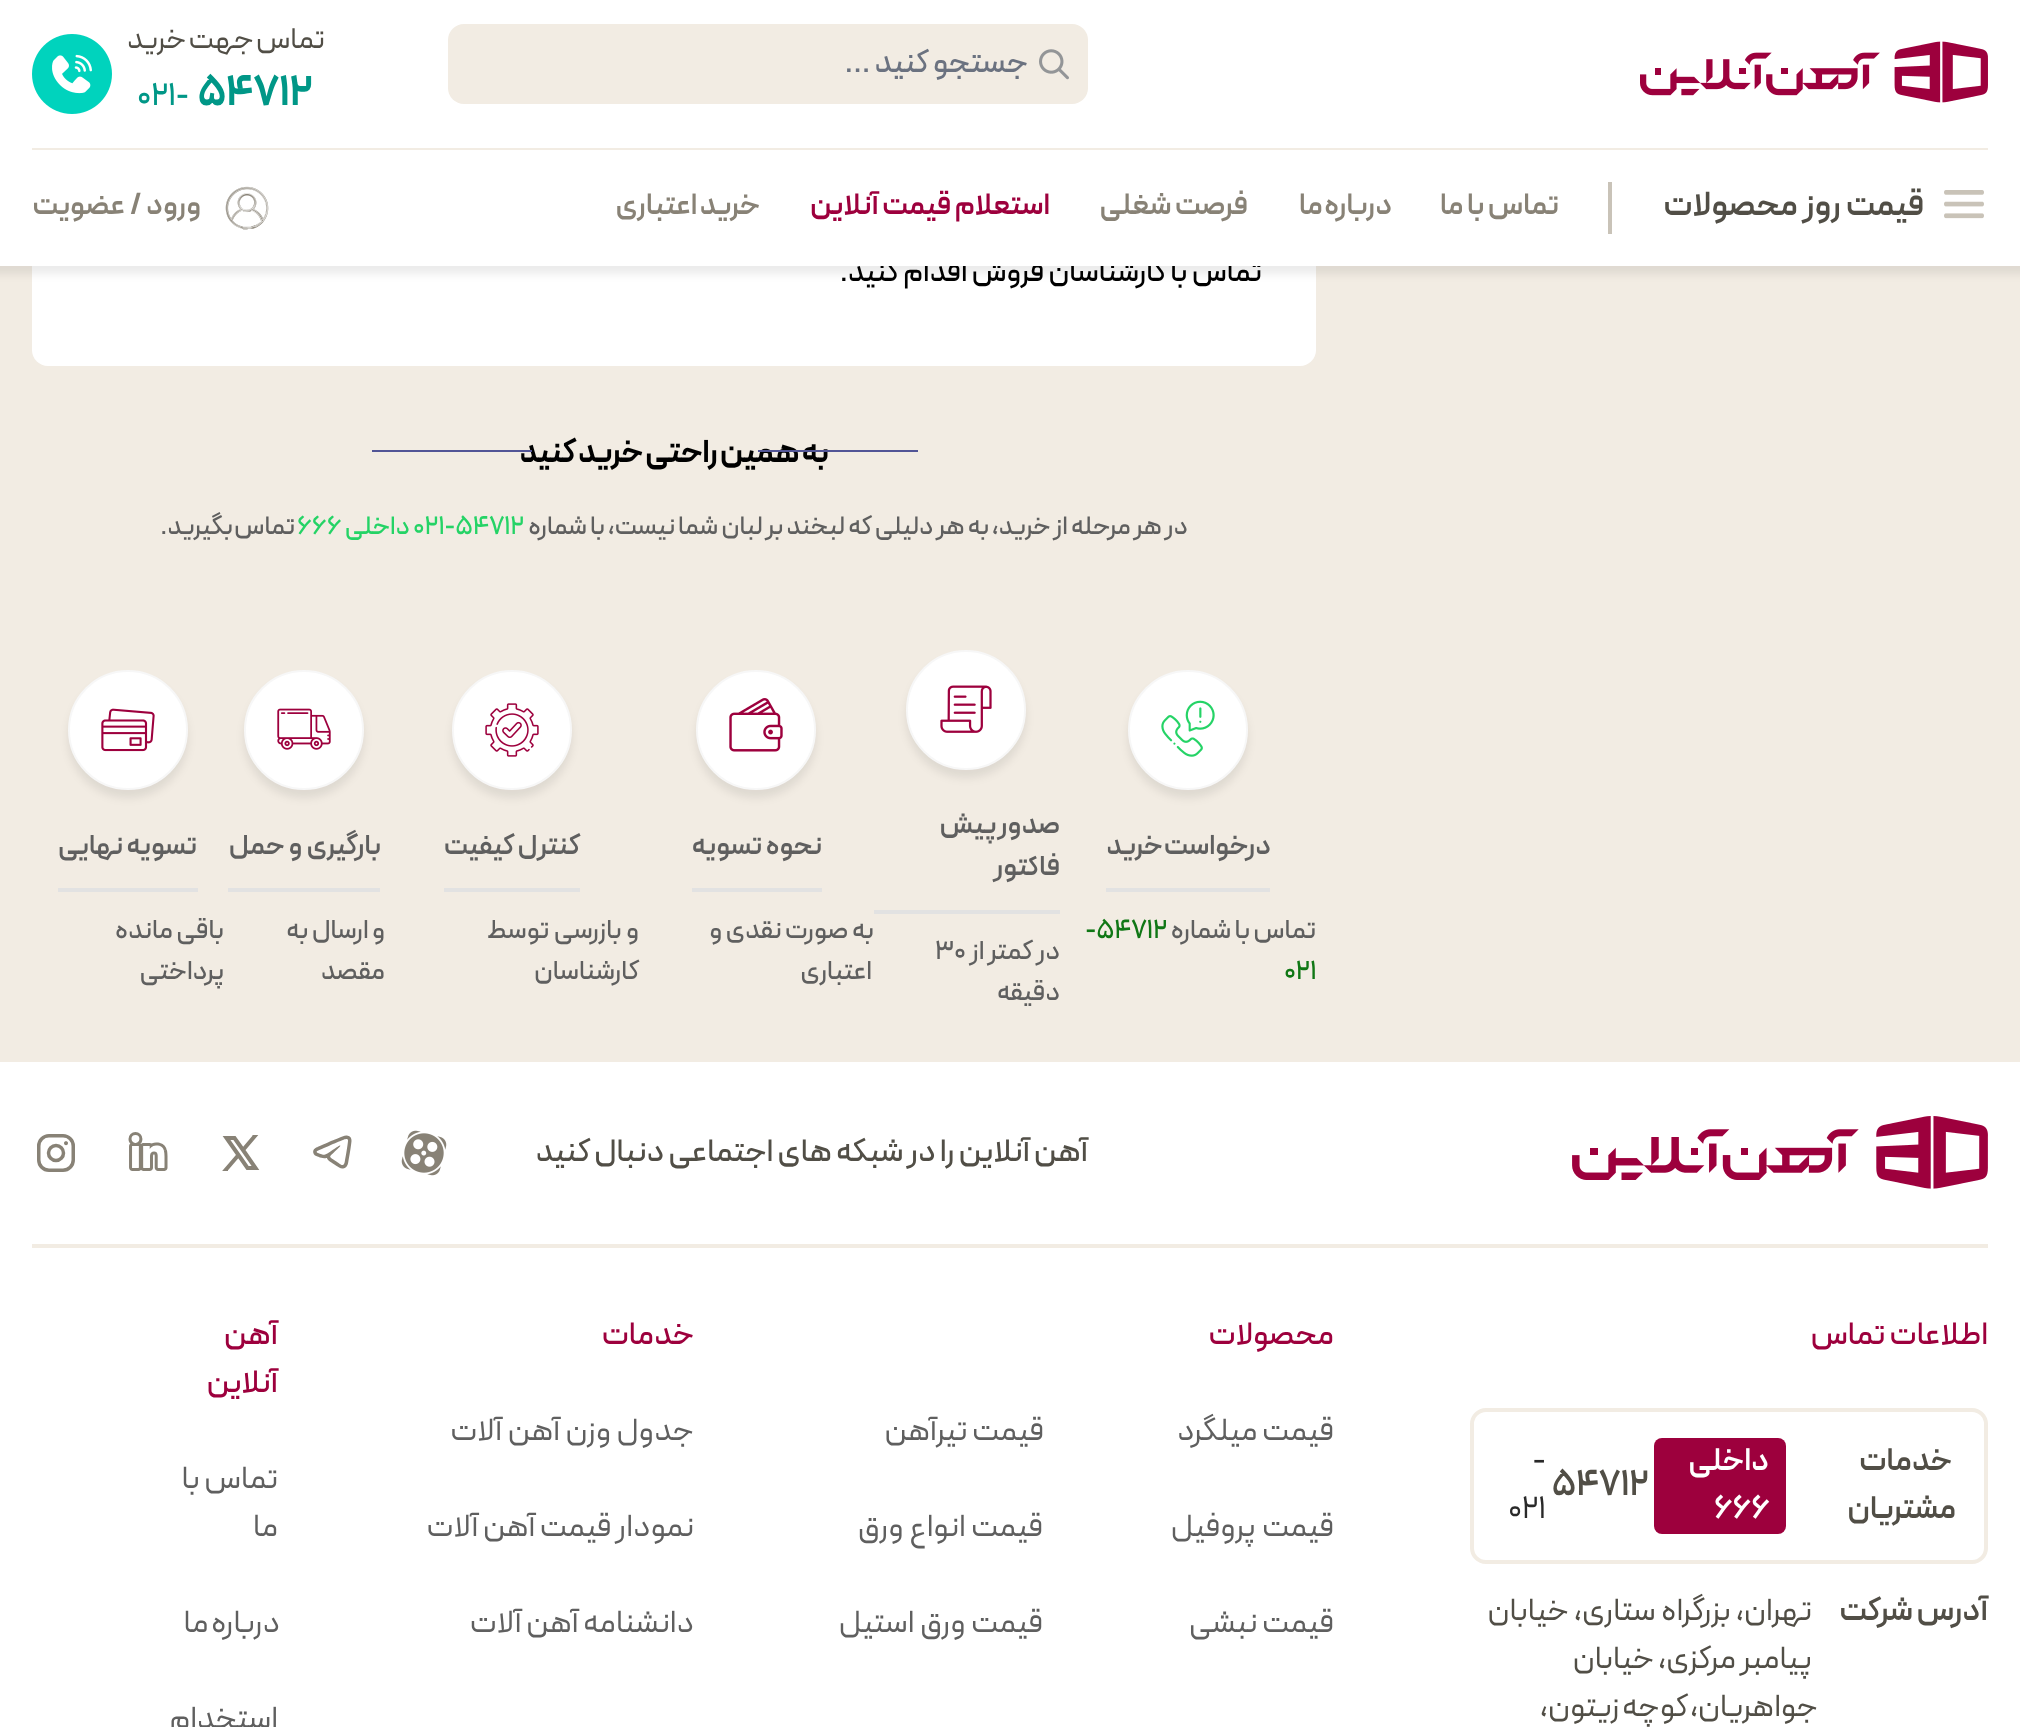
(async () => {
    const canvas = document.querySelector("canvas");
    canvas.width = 2020;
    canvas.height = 1727;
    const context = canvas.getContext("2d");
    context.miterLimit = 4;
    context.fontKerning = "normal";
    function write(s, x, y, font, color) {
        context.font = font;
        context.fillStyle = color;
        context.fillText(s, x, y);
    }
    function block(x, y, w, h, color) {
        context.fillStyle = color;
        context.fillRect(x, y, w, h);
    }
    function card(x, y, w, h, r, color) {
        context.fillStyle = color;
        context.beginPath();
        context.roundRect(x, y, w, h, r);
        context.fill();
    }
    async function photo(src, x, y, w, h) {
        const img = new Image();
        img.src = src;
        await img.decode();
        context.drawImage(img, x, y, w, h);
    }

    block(0, 0, 2020, 1727, "rgb(242, 236, 227)");
    card(32, -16, 1284, 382, 16, "rgb(255, 255, 255)");
    context.fillStyle = "rgba(0, 0, 0, 0.08)";
    context.filter = "blur(4px)";
    context.beginPath();
    context.rect(-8, -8, 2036, 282);
    context.fill();
    context.filter = "none";
    context.wordSpacing = "0.5px";
    context.direction = "rtl";
    write("تماس با کارشناسان فروش اقدام کنید.", 1262, 281, "500 30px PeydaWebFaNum", "rgb(0, 0, 0)");
    block(0, 0, 2020, 266, "rgb(255, 255, 255)");
    await photo("media/1.png", 1640, 41, 348, 62);
    card(448, 24, 640, 80, 16, "rgb(242, 236, 227)");
    await photo("media/2.png", 1039, 49, 30, 31);
    context.wordSpacing = "0px";
    write("جستجو کنید ...", 1028, 72, "500 32px PeydaWebFaNum", "rgb(107, 114, 128)");
    context.wordSpacing = "-2px";
    write("تماس جهت خرید", 325, 48, "30px PeydaWebFaNum", "rgb(81, 78, 70)");
    context.wordSpacing = "0px";
    context.direction = "ltr";
    write("54712", 198, 105, "bold 42px PeydaWebFaNum", "rgb(0, 151, 135)");
    write("021-", 137, 105, "500 32px PeydaWebFaNum", "rgb(0, 151, 135)");
    await photo("media/3.png", 32, 34, 80, 80);
    block(32, 148, 1956, 2, "rgb(242, 236, 227)");
    await photo("media/4.png", 1944, 190, 40, 29);
    context.wordSpacing = "1px";
    context.direction = "rtl";
    write("قیمت روز محصولات", 1924, 215, "600 34px PeydaWebFaNum", "rgb(81, 78, 70)");
    block(1608, 182, 4, 52, "rgb(201, 195, 184)");
    context.wordSpacing = "0px";
    write("تماس با ما", 1559, 214, "600 30px PeydaWebFaNum", "rgb(136, 130, 118)");
    context.wordSpacing = "-2px";
    write("درباره ما", 1392, 214, "600 30px PeydaWebFaNum", "rgb(136, 130, 118)");
    context.wordSpacing = "0px";
    write("فرصت شغلی", 1248, 214, "600 30px PeydaWebFaNum", "rgb(136, 130, 118)");
    write("استعلام قیمت آنلاین", 1050, 214, "600 30px PeydaWebFaNum", "rgb(157, 0, 61)");
    context.wordSpacing = "-1px";
    write("خرید اعتباری", 760, 214, "600 30px PeydaWebFaNum", "rgb(136, 130, 118)");
    await photo("media/5.png", 225, 186, 44, 44);
    context.wordSpacing = "1px";
    write("ورود / عضویت", 201, 214, "600 30px PeydaWebFaNum", "rgb(136, 130, 118)");
    context.wordSpacing = "-1px";
    write("به همین راحتی خرید کنید", 829, 462, "bold 32px PeydaWebFaNum", "rgb(0, 0, 0)");
    block(758, 450, 160, 2, "rgb(82, 85, 150)");
    block(372, 450, 160, 2, "rgb(82, 85, 150)");
    context.wordSpacing = "-0.25px";
    write("در هر مرحله از خرید، به هر دلیلی که لبخند بر لبان شما نیست، با شماره", 1188, 534, "500 26px PeydaWebFaNum", "rgb(95, 95, 95)");
    context.wordSpacing = "0px";
    context.direction = "ltr";
    write("021-54712", 413, 534, "500 26px PeydaWebFaNum", "rgb(37, 211, 102)");
    context.direction = "rtl";
    write("داخلی", 410, 534, "500 26px PeydaWebFaNum", "rgb(37, 211, 102)");
    context.direction = "ltr";
    write("۶۶۶", 297, 534, "500 26px PeydaWebFaNum", "rgb(37, 211, 102)");
    context.wordSpacing = "-2px";
    context.direction = "rtl";
    write("تماس بگیرید.", 295, 534, "500 26px PeydaWebFaNum", "rgb(95, 95, 95)");
    context.fillStyle = "rgba(0, 0, 0, 0.08)";
    context.filter = "blur(4px)";
    context.beginPath();
    context.roundRect(1128, 678, 120, 120, 60);
    context.fill();
    context.filter = "none";
    context.fillStyle = "rgb(255, 255, 255)";
    context.beginPath();
    context.arc(1188, 730, 59, 0, Math.PI * 2);
    context.fill();
    context.strokeStyle = "rgb(247, 247, 247)";
    context.lineWidth = 2;
    context.stroke();
    await photo("media/6.png", 1161, 700, 54, 57);
    block(1106, 888, 164, 4, "rgb(226, 226, 226)");
    write("درخواست خرید", 1271, 854, "600 28px PeydaWebFaNum", "rgb(95, 95, 95)");
    context.wordSpacing = "0px";
    write("تماس با شماره", 1316, 938, "500 26.75px PeydaWebFaNum", "rgb(95, 95, 95)");
    context.direction = "ltr";
    write("-54712", 1085, 938, "500 26.75px PeydaWebFaNum", "rgb(16, 119, 21)");
    write("021", 1284, 979, "500 26.75px PeydaWebFaNum", "rgb(16, 119, 21)");
    context.fillStyle = "rgba(0, 0, 0, 0.08)";
    context.filter = "blur(4px)";
    context.beginPath();
    context.roundRect(906, 658, 120, 120, 60);
    context.fill();
    context.filter = "none";
    context.fillStyle = "rgb(255, 255, 255)";
    context.beginPath();
    context.arc(966, 710, 59, 0, Math.PI * 2);
    context.fill();
    context.stroke();
    await photo("media/7.png", 940, 685, 52, 48);
    block(874, 910, 186, 4, "rgb(226, 226, 226)");
    context.wordSpacing = "-2px";
    context.direction = "rtl";
    write("صدور پیش", 1060, 833, "600 28px PeydaWebFaNum", "rgb(95, 95, 95)");
    context.wordSpacing = "0px";
    write("فاکتور", 1060, 875, "600 28px PeydaWebFaNum", "rgb(95, 95, 95)");
    write("در کمتر از", 1060, 959, "500 26.75px PeydaWebFaNum", "rgb(95, 95, 95)");
    context.direction = "ltr";
    write("30", 935, 959, "500 26.75px PeydaWebFaNum", "rgb(95, 95, 95)");
    context.direction = "rtl";
    write("دقیقه", 1060, 1000, "500 26.75px PeydaWebFaNum", "rgb(95, 95, 95)");
    context.fillStyle = "rgba(0, 0, 0, 0.08)";
    context.filter = "blur(4px)";
    context.beginPath();
    context.roundRect(696, 678, 120, 120, 60);
    context.fill();
    context.filter = "none";
    context.fillStyle = "rgb(255, 255, 255)";
    context.beginPath();
    context.arc(756, 730, 59, 0, Math.PI * 2);
    context.fill();
    context.stroke();
    await photo("media/8.png", 729, 698, 54, 54);
    block(692, 888, 130, 4, "rgb(226, 226, 226)");
    write("نحوه تسویه", 822, 854, "600 28px PeydaWebFaNum", "rgb(95, 95, 95)");
    write("به صورت نقدی و", 874, 938, "500 26.75px PeydaWebFaNum", "rgb(95, 95, 95)");
    write("اعتباری", 872, 979, "500 26.75px PeydaWebFaNum", "rgb(95, 95, 95)");
    context.fillStyle = "rgba(0, 0, 0, 0.08)";
    context.filter = "blur(4px)";
    context.beginPath();
    context.roundRect(452, 678, 120, 120, 60);
    context.fill();
    context.filter = "none";
    context.fillStyle = "rgb(255, 255, 255)";
    context.beginPath();
    context.arc(512, 730, 59, 0, Math.PI * 2);
    context.fill();
    context.stroke();
    await photo("media/9.png", 485, 703, 54, 54);
    block(444, 888, 136, 4, "rgb(226, 226, 226)");
    write("کنترل کیفیت", 580, 854, "600 28px PeydaWebFaNum", "rgb(95, 95, 95)");
    context.wordSpacing = "1px";
    write("و بازرسی توسط", 639, 938, "500 26.75px PeydaWebFaNum", "rgb(95, 95, 95)");
    context.wordSpacing = "0px";
    write("کارشناسان", 639, 979, "500 26.75px PeydaWebFaNum", "rgb(95, 95, 95)");
    context.fillStyle = "rgba(0, 0, 0, 0.08)";
    context.filter = "blur(4px)";
    context.beginPath();
    context.roundRect(244, 678, 120, 120, 60);
    context.fill();
    context.filter = "none";
    context.fillStyle = "rgb(255, 255, 255)";
    context.beginPath();
    context.arc(304, 730, 59, 0, Math.PI * 2);
    context.fill();
    context.stroke();
    await photo("media/10.png", 277, 708, 54, 42);
    block(228, 888, 152, 4, "rgb(226, 226, 226)");
    context.wordSpacing = "1px";
    write("بارگیری و حمل", 381, 854, "600 28px PeydaWebFaNum", "rgb(95, 95, 95)");
    context.wordSpacing = "0px";
    write("و ارسال به", 385, 938, "500 26.75px PeydaWebFaNum", "rgb(95, 95, 95)");
    write("مقصد", 385, 979, "500 26.75px PeydaWebFaNum", "rgb(95, 95, 95)");
    context.fillStyle = "rgba(0, 0, 0, 0.08)";
    context.filter = "blur(4px)";
    context.beginPath();
    context.roundRect(68, 678, 120, 120, 60);
    context.fill();
    context.filter = "none";
    context.fillStyle = "rgb(255, 255, 255)";
    context.beginPath();
    context.arc(128, 730, 59, 0, Math.PI * 2);
    context.fill();
    context.stroke();
    await photo("media/11.png", 101, 708, 54, 44);
    block(58, 888, 140, 4, "rgb(226, 226, 226)");
    write("تسویه نهایی", 197, 854, "600 28px PeydaWebFaNum", "rgb(95, 95, 95)");
    write("باقی مانده", 224, 938, "500 26.75px PeydaWebFaNum", "rgb(95, 95, 95)");
    write("پرداختی", 224, 979, "500 26.75px PeydaWebFaNum", "rgb(95, 95, 95)");
    block(0, 1062, 2020, 665, "rgb(255, 255, 255)");
    block(32, 1244, 1956, 4, "rgb(242, 236, 227)");
    await photo("media/12.png", 1572, 1116, 416, 73);
    write("آهن آنلاین را در شبکه های اجتماعی دنبال کنید", 1088, 1161, "500 32px PeydaWebFaNum", "rgb(81, 78, 70)");
    await photo("media/13.png", 401, 1130, 46, 46);
    await photo("media/14.png", 313, 1135, 39, 34);
    context.beginPath();
    context.moveTo(243, 1150);
    context.lineTo(254, 1137);
    context.lineTo(252.5, 1137);
    context.moveTo(243, 1150);
    context.lineTo(255.5, 1168);
    context.lineTo(247.5, 1168);
    context.lineTo(238.5, 1155);
    context.moveTo(243, 1150);
    context.lineTo(234.5, 1138);
    context.lineTo(226.5, 1138);
    context.lineTo(238.5, 1155);
    context.moveTo(238.5, 1155);
    context.lineTo(226.5, 1169);
    context.lineTo(228, 1169);
    context.strokeStyle = "rgb(136, 130, 118)";
    context.lineWidth = 4;
    context.stroke();
    await photo("media/15.png", 128, 1132, 40, 39);
    context.beginPath();
    context.roundRect(38.75, 1135.75, 34.5, 34.5, 10.25);
    context.lineWidth = 3.5;
    context.stroke();
    context.beginPath();
    context.arc(56, 1153, 7.5, 0, Math.PI * 2);
    context.stroke();
    context.fillStyle = "rgb(136, 130, 118)";
    context.beginPath();
    context.moveTo(68, 1143);
    context.bezierCurveTo(68, 1146, 64, 1146, 64, 1143);
    context.bezierCurveTo(64, 1140.5, 68, 1140.5, 68, 1143);
    context.closePath();
    context.fill();
    write("اطلاعات تماس", 1988, 1344, "500 32px PeydaWebFaNum", "rgb(157, 0, 61)");
    context.beginPath();
    context.roundRect(1472, 1410, 514, 152, 14);
    context.strokeStyle = "rgb(242, 236, 227)";
    context.lineWidth = 4;
    context.stroke();
    write("خدمات", 1952, 1470, "600 32px PeydaWebFaNum", "rgb(81, 78, 70)");
    write("مشتریان", 1956, 1518, "600 32px PeydaWebFaNum", "rgb(81, 78, 70)");
    card(1654, 1438, 132, 96, 8, "rgb(157, 0, 61)");
    write("داخلی", 1769, 1470, "600 32px PeydaWebFaNum", "rgb(255, 255, 255)");
    context.direction = "ltr";
    write("666", 1714, 1518, "600 32px PeydaWebFaNum", "rgb(255, 255, 255)");
    write("54712", 1552, 1495, "600 36px PeydaWebFaNum", "rgb(81, 78, 70)");
    write("-", 1532, 1470, "32px PeydaWebFaNum", "rgb(41, 41, 41)");
    write("021", 1508, 1518, "32px PeydaWebFaNum", "rgb(41, 41, 41)");
    context.direction = "rtl";
    write("آدرس شرکت", 1988, 1620, "600 32px PeydaWebFaNum", "rgb(81, 78, 70)");
    context.wordSpacing = "1px";
    write("تهران، بزرگراه ستاری، خیابان", 1812, 1620, "32px PeydaWebFaNum", "rgb(81, 78, 70)");
    context.wordSpacing = "0px";
    write("پیامبر مرکزی، خیابان", 1812, 1668, "32px PeydaWebFaNum", "rgb(81, 78, 70)");
    context.wordSpacing = "-2px";
    write("جواهریان، کوچه زیتون،", 1818, 1716, "32px PeydaWebFaNum", "rgb(81, 78, 70)");
    context.wordSpacing = "0px";
    write("محصولات", 1334, 1344, "500 32px PeydaWebFaNum", "rgb(157, 0, 61)");
    write("قیمت میلگرد", 1334, 1440, "32px PeydaWebFaNum", "rgb(95, 95, 95)");
    write("قیمت تیرآهن", 1044, 1440, "32px PeydaWebFaNum", "rgb(95, 95, 95)");
    context.wordSpacing = "2px";
    write("قیمت پروفیل", 1334, 1536, "32px PeydaWebFaNum", "rgb(95, 95, 95)");
    context.wordSpacing = "1px";
    write("قیمت انواع ورق", 1043, 1536, "32px PeydaWebFaNum", "rgb(95, 95, 95)");
    context.wordSpacing = "0px";
    write("قیمت نبشی", 1334, 1632, "32px PeydaWebFaNum", "rgb(95, 95, 95)");
    context.wordSpacing = "1px";
    write("قیمت ورق استیل", 1043, 1632, "32px PeydaWebFaNum", "rgb(95, 95, 95)");
    context.wordSpacing = "0px";
    write("خدمات", 694, 1344, "500 32px PeydaWebFaNum", "rgb(157, 0, 61)");
    context.wordSpacing = "1px";
    write("جدول وزن آهن آلات", 694, 1440, "32px PeydaWebFaNum", "rgb(95, 95, 95)");
    context.wordSpacing = "0px";
    write("نمودار قیمت آهن آلات", 694, 1536, "32px PeydaWebFaNum", "rgb(95, 95, 95)");
    write("دانشنامه آهن آلات", 694, 1632, "32px PeydaWebFaNum", "rgb(95, 95, 95)");
    write("آهن", 278, 1344, "500 32px PeydaWebFaNum", "rgb(157, 0, 61)");
    write("آنلاین", 278, 1392, "500 32px PeydaWebFaNum", "rgb(157, 0, 61)");
    write("تماس با", 278, 1488, "32px PeydaWebFaNum", "rgb(95, 95, 95)");
    write("ما", 278, 1536, "32px PeydaWebFaNum", "rgb(95, 95, 95)");
    context.wordSpacing = "-2px";
    write("درباره ما", 280, 1632, "32px PeydaWebFaNum", "rgb(95, 95, 95)");
    context.wordSpacing = "0px";
    write("استخدام", 278, 1728, "32px PeydaWebFaNum", "rgb(95, 95, 95)");
})();
